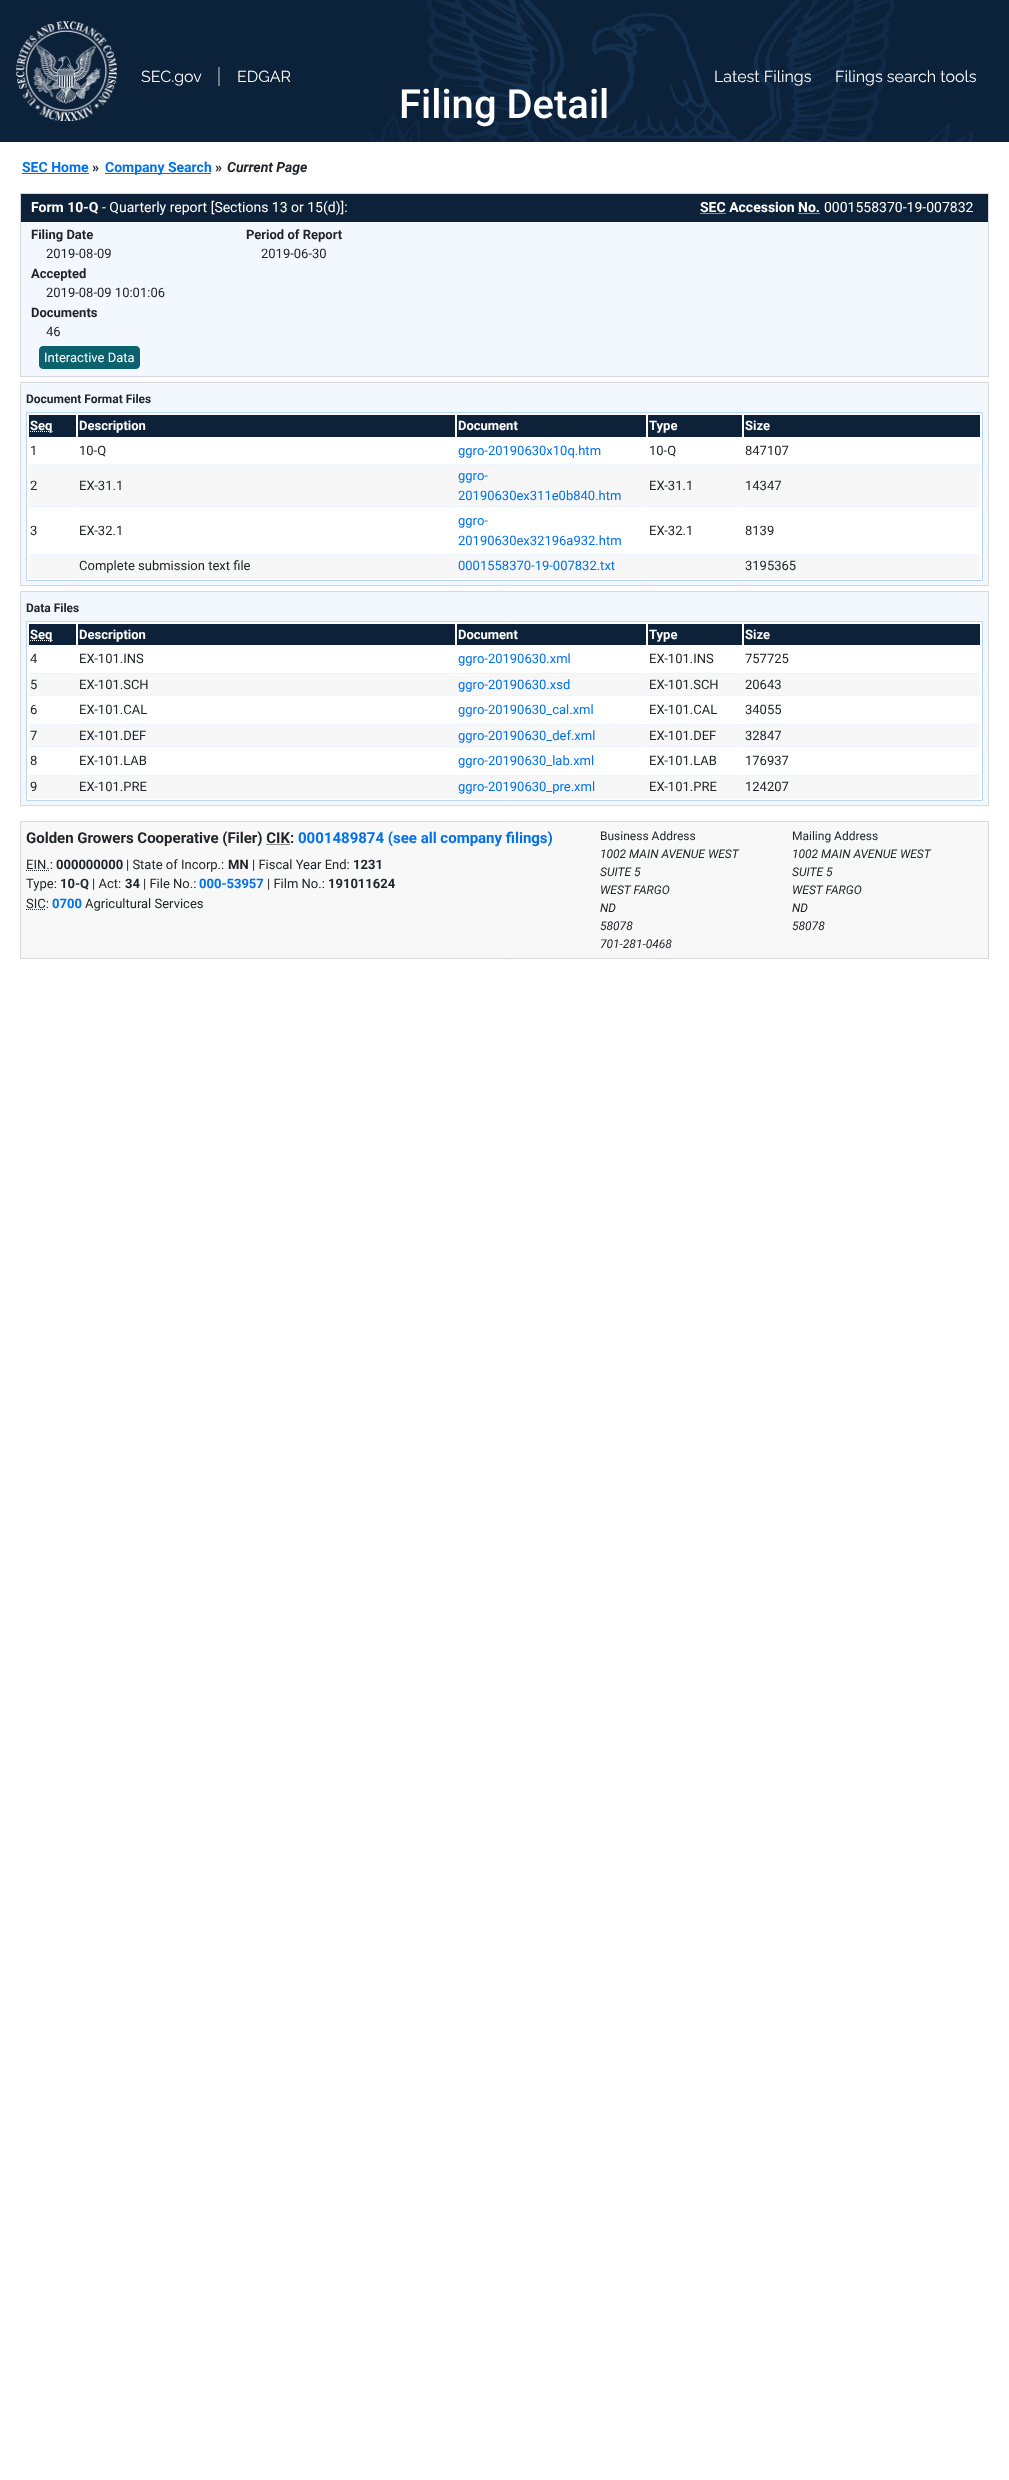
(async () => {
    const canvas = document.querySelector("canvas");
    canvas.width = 1009;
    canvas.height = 2480;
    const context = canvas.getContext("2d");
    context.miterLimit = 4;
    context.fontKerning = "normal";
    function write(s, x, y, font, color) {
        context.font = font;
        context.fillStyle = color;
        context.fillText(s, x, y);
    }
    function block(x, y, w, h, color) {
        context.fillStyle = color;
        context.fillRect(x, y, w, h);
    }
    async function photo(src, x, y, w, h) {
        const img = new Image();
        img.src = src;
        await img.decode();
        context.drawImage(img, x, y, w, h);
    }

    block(0, 0, 1009, 2480, "rgb(255, 255, 255)");
    block(0, 0, 1009, 142, "rgb(12, 33, 58)");
    await photo("media/1.png", 369, 0, 605, 142);
    await photo("media/2.png", 16, 21, 101, 100);
    write("SEC.gov", 141, 82, "16px Raleway", "rgb(255, 255, 255)");
    block(218, 67, 2, 19, "rgb(112, 121, 130)");
    write("EDGAR", 237, 82, "16px Raleway", "rgb(255, 255, 255)");
    write("Latest Filings", 714, 82, "16px Raleway", "rgb(255, 255, 255)");
    write("Filings search tools", 835, 82, "16px Raleway", "rgb(255, 255, 255)");
    write("Filing Detail", 399, 118, "500 40px Roboto", "rgb(255, 255, 255)");
    write("SEC Home", 22, 172, "bold 14px Roboto", "rgb(0, 113, 235)");
    block(22, 173, 67, 1, "rgb(0, 113, 235)");
    write("»", 92, 172, "bold 14px Roboto", "rgb(33, 37, 41)");
    block(105, 173, 106, 1, "rgb(0, 113, 235)");
    write("Company Search", 105, 172, "bold 14px Roboto", "rgb(0, 113, 235)");
    write("»", 215, 172, "bold 14px Roboto", "rgb(33, 37, 41)");
    write("Current Page", 227, 172, "italic bold 14px Roboto", "rgb(33, 37, 41)");
    block(21, 222, 967, 154, "rgb(243, 248, 255)");
    context.strokeStyle = "rgb(213, 217, 223)";
    context.strokeRect(20.5, 193.5, 968, 183);
    block(21, 194, 967, 28, "rgb(13, 34, 57)");
    write("Form 10-Q", 31, 212, "bold 14px Roboto", "rgb(255, 255, 255)");
    write("- Quarterly report [Sections 13 or 15(d)]:", 102, 212, "14px Roboto", "rgb(255, 255, 255)");
    write("SEC Accession No.", 700, 212, "bold 14px Roboto", "rgb(255, 255, 255)");
    context.beginPath();
    context.moveTo(700.5, 213.5);
    context.lineTo(726, 213.5);
    context.strokeStyle = "rgb(255, 255, 255)";
    context.setLineDash([1, 1]);
    context.stroke();
    context.beginPath();
    context.moveTo(798.5, 213.5);
    context.lineTo(820, 213.5);
    context.stroke();
    write("0001558370-19-007832", 824, 212, "14px Roboto", "rgb(255, 255, 255)");
    write("Filing Date", 31, 239, "bold 13px Roboto", "rgb(33, 37, 41)");
    write("2019-08-09", 46, 258, "13px Roboto", "rgb(33, 37, 41)");
    write("Accepted", 31, 278, "bold 13px Roboto", "rgb(33, 37, 41)");
    write("2019-08-09 10:01:06", 46, 297, "13px Roboto", "rgb(33, 37, 41)");
    write("Documents", 31, 317, "bold 13px Roboto", "rgb(33, 37, 41)");
    write("46", 46, 336, "13px Roboto", "rgb(33, 37, 41)");
    write("Period of Report", 246, 239, "bold 13px Roboto", "rgb(33, 37, 41)");
    write("2019-06-30", 261, 258, "13px Roboto", "rgb(33, 37, 41)");
    context.fillStyle = "rgb(12, 97, 110)";
    context.beginPath();
    context.roundRect(39.5, 346.5, 100, 22, 3.5);
    context.fill();
    context.strokeStyle = "rgb(12, 97, 110)";
    context.setLineDash([]);
    context.stroke();
    write("Interactive Data", 44, 362, "13px Roboto", "rgb(255, 255, 255)");
    context.fillStyle = "rgb(243, 248, 255)";
    context.beginPath();
    context.rect(20.5, 382.5, 968, 203);
    context.fill();
    context.strokeStyle = "rgb(213, 217, 223)";
    context.stroke();
    write("Document Format Files", 26, 403, "bold 12px Roboto", "rgb(33, 37, 41)");
    context.fillStyle = "rgb(255, 255, 255)";
    context.beginPath();
    context.rect(26.5, 412.5, 956, 168);
    context.fill();
    context.strokeStyle = "rgb(188, 214, 248)";
    context.stroke();
    block(29, 415, 47, 22, "rgb(13, 34, 57)");
    context.beginPath();
    context.moveTo(30, 431.5);
    context.lineTo(52.5, 431.5);
    context.strokeStyle = "rgb(255, 255, 255)";
    context.setLineDash([1, 1]);
    context.stroke();
    write("Seq", 30, 430, "bold 13px Roboto", "rgb(255, 255, 255)");
    block(78, 415, 377, 22, "rgb(13, 34, 57)");
    write("Description", 79, 430, "bold 13px Roboto", "rgb(255, 255, 255)");
    block(457, 415, 189, 22, "rgb(13, 34, 57)");
    write("Document", 458, 430, "bold 13px Roboto", "rgb(255, 255, 255)");
    block(648, 415, 94, 22, "rgb(13, 34, 57)");
    write("Type", 649, 430, "bold 13px Roboto", "rgb(255, 255, 255)");
    block(744, 415, 236, 22, "rgb(13, 34, 57)");
    write("Size", 745, 430, "bold 13px Roboto", "rgb(255, 255, 255)");
    write("1", 30, 455, "13px Roboto", "rgb(33, 37, 41)");
    write("10-Q", 79, 455, "13px Roboto", "rgb(33, 37, 41)");
    write("ggro-20190630x10q.htm", 458, 455, "13px Roboto", "rgb(0, 113, 235)");
    write("10-Q", 649, 455, "13px Roboto", "rgb(33, 37, 41)");
    write("847107", 745, 455, "13px Roboto", "rgb(33, 37, 41)");
    block(29, 464, 951, 43, "rgb(247, 247, 247)");
    block(29, 464, 47, 1, "rgb(238, 244, 253)");
    block(29, 506, 47, 1, "rgb(238, 244, 253)");
    write("2", 30, 490, "13px Roboto", "rgb(33, 37, 41)");
    block(78, 464, 377, 1, "rgb(238, 244, 253)");
    block(78, 506, 377, 1, "rgb(238, 244, 253)");
    write("EX-31.1", 79, 490, "13px Roboto", "rgb(33, 37, 41)");
    block(457, 464, 189, 1, "rgb(238, 244, 253)");
    block(457, 506, 189, 1, "rgb(238, 244, 253)");
    write("ggro-", 458, 480, "13px Roboto", "rgb(0, 113, 235)");
    write("20190630ex311e0b840.htm", 458, 500, "13px Roboto", "rgb(0, 113, 235)");
    block(648, 464, 94, 1, "rgb(238, 244, 253)");
    block(648, 506, 94, 1, "rgb(238, 244, 253)");
    write("EX-31.1", 649, 490, "13px Roboto", "rgb(33, 37, 41)");
    block(744, 464, 236, 1, "rgb(238, 244, 253)");
    block(744, 506, 236, 1, "rgb(238, 244, 253)");
    write("14347", 745, 490, "13px Roboto", "rgb(33, 37, 41)");
    write("3", 30, 535, "13px Roboto", "rgb(33, 37, 41)");
    write("EX-32.1", 79, 535, "13px Roboto", "rgb(33, 37, 41)");
    write("ggro-", 458, 525, "13px Roboto", "rgb(0, 113, 235)");
    write("20190630ex32196a932.htm", 458, 545, "13px Roboto", "rgb(0, 113, 235)");
    write("EX-32.1", 649, 535, "13px Roboto", "rgb(33, 37, 41)");
    write("8139", 745, 535, "13px Roboto", "rgb(33, 37, 41)");
    block(29, 554, 951, 24, "rgb(247, 247, 247)");
    block(29, 554, 47, 1, "rgb(238, 244, 253)");
    block(29, 577, 47, 1, "rgb(238, 244, 253)");
    block(78, 554, 377, 1, "rgb(238, 244, 253)");
    block(78, 577, 377, 1, "rgb(238, 244, 253)");
    write("Complete submission text file", 79, 570, "13px Roboto", "rgb(33, 37, 41)");
    block(457, 554, 189, 1, "rgb(238, 244, 253)");
    block(457, 577, 189, 1, "rgb(238, 244, 253)");
    write("0001558370-19-007832.txt", 458, 570, "13px Roboto", "rgb(0, 113, 235)");
    block(648, 554, 94, 1, "rgb(238, 244, 253)");
    block(648, 577, 94, 1, "rgb(238, 244, 253)");
    block(744, 554, 236, 1, "rgb(238, 244, 253)");
    block(744, 577, 236, 1, "rgb(238, 244, 253)");
    write("3195365", 745, 570, "13px Roboto", "rgb(33, 37, 41)");
    context.fillStyle = "rgb(243, 248, 255)";
    context.beginPath();
    context.rect(20.5, 591.5, 968, 214);
    context.fill();
    context.strokeStyle = "rgb(213, 217, 223)";
    context.setLineDash([]);
    context.stroke();
    write("Data Files", 26, 612, "bold 12px Roboto", "rgb(33, 37, 41)");
    context.fillStyle = "rgb(255, 255, 255)";
    context.beginPath();
    context.rect(26.5, 621.5, 956, 179);
    context.fill();
    context.strokeStyle = "rgb(188, 214, 248)";
    context.stroke();
    block(29, 624, 47, 21, "rgb(13, 34, 57)");
    context.beginPath();
    context.moveTo(30, 640.5);
    context.lineTo(52.5, 640.5);
    context.strokeStyle = "rgb(255, 255, 255)";
    context.setLineDash([1, 1]);
    context.stroke();
    write("Seq", 30, 639, "bold 13px Roboto", "rgb(255, 255, 255)");
    block(78, 624, 377, 21, "rgb(13, 34, 57)");
    write("Description", 79, 639, "bold 13px Roboto", "rgb(255, 255, 255)");
    block(457, 624, 189, 21, "rgb(13, 34, 57)");
    write("Document", 458, 639, "bold 13px Roboto", "rgb(255, 255, 255)");
    block(648, 624, 94, 21, "rgb(13, 34, 57)");
    write("Type", 649, 639, "bold 13px Roboto", "rgb(255, 255, 255)");
    block(744, 624, 236, 21, "rgb(13, 34, 57)");
    write("Size", 745, 639, "bold 13px Roboto", "rgb(255, 255, 255)");
    write("4", 30, 663, "13px Roboto", "rgb(33, 37, 41)");
    write("EX-101.INS", 79, 663, "13px Roboto", "rgb(33, 37, 41)");
    write("ggro-20190630.xml", 458, 663, "13px Roboto", "rgb(0, 113, 235)");
    write("EX-101.INS", 649, 663, "13px Roboto", "rgb(33, 37, 41)");
    write("757725", 745, 663, "13px Roboto", "rgb(33, 37, 41)");
    block(29, 673, 951, 23, "rgb(247, 247, 247)");
    block(29, 673, 47, 1, "rgb(238, 244, 253)");
    block(29, 695, 47, 1, "rgb(238, 244, 253)");
    write("5", 30, 689, "13px Roboto", "rgb(33, 37, 41)");
    block(78, 673, 377, 1, "rgb(238, 244, 253)");
    block(78, 695, 377, 1, "rgb(238, 244, 253)");
    write("EX-101.SCH", 79, 689, "13px Roboto", "rgb(33, 37, 41)");
    block(457, 673, 189, 1, "rgb(238, 244, 253)");
    block(457, 695, 189, 1, "rgb(238, 244, 253)");
    write("ggro-20190630.xsd", 458, 689, "13px Roboto", "rgb(0, 113, 235)");
    block(648, 673, 94, 1, "rgb(238, 244, 253)");
    block(648, 695, 94, 1, "rgb(238, 244, 253)");
    write("EX-101.SCH", 649, 689, "13px Roboto", "rgb(33, 37, 41)");
    block(744, 673, 236, 1, "rgb(238, 244, 253)");
    block(744, 695, 236, 1, "rgb(238, 244, 253)");
    write("20643", 745, 689, "13px Roboto", "rgb(33, 37, 41)");
    write("6", 30, 714, "13px Roboto", "rgb(33, 37, 41)");
    write("EX-101.CAL", 79, 714, "13px Roboto", "rgb(33, 37, 41)");
    write("ggro-20190630_cal.xml", 458, 714, "13px Roboto", "rgb(0, 113, 235)");
    write("EX-101.CAL", 649, 714, "13px Roboto", "rgb(33, 37, 41)");
    write("34055", 745, 714, "13px Roboto", "rgb(33, 37, 41)");
    block(29, 724, 951, 23, "rgb(247, 247, 247)");
    block(29, 724, 47, 1, "rgb(238, 244, 253)");
    block(29, 746, 47, 1, "rgb(238, 244, 253)");
    write("7", 30, 740, "13px Roboto", "rgb(33, 37, 41)");
    block(78, 724, 377, 1, "rgb(238, 244, 253)");
    block(78, 746, 377, 1, "rgb(238, 244, 253)");
    write("EX-101.DEF", 79, 740, "13px Roboto", "rgb(33, 37, 41)");
    block(457, 724, 189, 1, "rgb(238, 244, 253)");
    block(457, 746, 189, 1, "rgb(238, 244, 253)");
    write("ggro-20190630_def.xml", 458, 740, "13px Roboto", "rgb(0, 113, 235)");
    block(648, 724, 94, 1, "rgb(238, 244, 253)");
    block(648, 746, 94, 1, "rgb(238, 244, 253)");
    write("EX-101.DEF", 649, 740, "13px Roboto", "rgb(33, 37, 41)");
    block(744, 724, 236, 1, "rgb(238, 244, 253)");
    block(744, 746, 236, 1, "rgb(238, 244, 253)");
    write("32847", 745, 740, "13px Roboto", "rgb(33, 37, 41)");
    write("8", 30, 765, "13px Roboto", "rgb(33, 37, 41)");
    write("EX-101.LAB", 79, 765, "13px Roboto", "rgb(33, 37, 41)");
    write("ggro-20190630_lab.xml", 458, 765, "13px Roboto", "rgb(0, 113, 235)");
    write("EX-101.LAB", 649, 765, "13px Roboto", "rgb(33, 37, 41)");
    write("176937", 745, 765, "13px Roboto", "rgb(33, 37, 41)");
    block(29, 775, 951, 23, "rgb(247, 247, 247)");
    block(29, 775, 47, 1, "rgb(238, 244, 253)");
    block(29, 797, 47, 1, "rgb(238, 244, 253)");
    write("9", 30, 791, "13px Roboto", "rgb(33, 37, 41)");
    block(78, 775, 377, 1, "rgb(238, 244, 253)");
    block(78, 797, 377, 1, "rgb(238, 244, 253)");
    write("EX-101.PRE", 79, 791, "13px Roboto", "rgb(33, 37, 41)");
    block(457, 775, 189, 1, "rgb(238, 244, 253)");
    block(457, 797, 189, 1, "rgb(238, 244, 253)");
    write("ggro-20190630_pre.xml", 458, 791, "13px Roboto", "rgb(0, 113, 235)");
    block(648, 775, 94, 1, "rgb(238, 244, 253)");
    block(648, 797, 94, 1, "rgb(238, 244, 253)");
    write("EX-101.PRE", 649, 791, "13px Roboto", "rgb(33, 37, 41)");
    block(744, 775, 236, 1, "rgb(238, 244, 253)");
    block(744, 797, 236, 1, "rgb(238, 244, 253)");
    write("124207", 745, 791, "13px Roboto", "rgb(33, 37, 41)");
    context.fillStyle = "rgb(248, 248, 248)";
    context.beginPath();
    context.rect(20.5, 821.5, 968, 137);
    context.fill();
    context.strokeStyle = "rgb(217, 217, 217)";
    context.setLineDash([]);
    context.stroke();
    write("Golden Growers Cooperative (Filer) CIK:", 26, 843, "bold 15px Roboto", "rgb(33, 37, 41)");
    write("0001489874 (see all company filings)", 298, 843, "bold 15px Roboto", "rgb(0, 113, 235)");
    context.beginPath();
    context.moveTo(266.5, 844.5);
    context.lineTo(290, 844.5);
    context.strokeStyle = "rgb(33, 37, 41)";
    context.setLineDash([1, 1]);
    context.stroke();
    write("EIN.:", 26, 869, "13px Roboto", "rgb(33, 37, 41)");
    context.beginPath();
    context.moveTo(26, 870.5);
    context.lineTo(49.5, 870.5);
    context.stroke();
    write("000000000", 56, 869, "bold 13px Roboto", "rgb(33, 37, 41)");
    write("| State of Incorp.:", 126, 869, "13px Roboto", "rgb(33, 37, 41)");
    write("MN", 228, 869, "bold 13px Roboto", "rgb(33, 37, 41)");
    write("| Fiscal Year End:", 252, 869, "13px Roboto", "rgb(33, 37, 41)");
    write("1231", 353, 869, "bold 13px Roboto", "rgb(33, 37, 41)");
    write("Type:", 26, 888, "13px Roboto", "rgb(33, 37, 41)");
    write("10-Q", 60, 888, "bold 13px Roboto", "rgb(33, 37, 41)");
    write("| Act:", 92, 888, "13px Roboto", "rgb(33, 37, 41)");
    write("34", 125, 888, "bold 13px Roboto", "rgb(33, 37, 41)");
    write("| File No.:", 143, 888, "13px Roboto", "rgb(33, 37, 41)");
    write("000-53957", 199, 888, "bold 13px Roboto", "rgb(0, 113, 235)");
    write("| Film No.:", 267, 888, "13px Roboto", "rgb(33, 37, 41)");
    write("191011624", 328, 888, "bold 13px Roboto", "rgb(33, 37, 41)");
    write("SIC:", 26, 908, "13px Roboto", "rgb(33, 37, 41)");
    context.beginPath();
    context.moveTo(26, 909.5);
    context.lineTo(45.5, 909.5);
    context.stroke();
    write("0700", 52, 908, "bold 13px Roboto", "rgb(0, 113, 235)");
    write("Agricultural Services", 85, 908, "13px Roboto", "rgb(33, 37, 41)");
    write("Business Address", 600, 840, "12px Roboto", "rgb(33, 37, 41)");
    write("1002 MAIN AVENUE WEST", 600, 858, "italic 12px Roboto", "rgb(33, 37, 41)");
    write("SUITE 5", 600, 876, "italic 12px Roboto", "rgb(33, 37, 41)");
    write("WEST FARGO", 600, 894, "italic 12px Roboto", "rgb(33, 37, 41)");
    write("ND", 600, 912, "italic 12px Roboto", "rgb(33, 37, 41)");
    write("58078", 600, 930, "italic 12px Roboto", "rgb(33, 37, 41)");
    write("701-281-0468", 600, 948, "italic 12px Roboto", "rgb(33, 37, 41)");
    write("Mailing Address", 792, 840, "12px Roboto", "rgb(33, 37, 41)");
    write("1002 MAIN AVENUE WEST", 792, 858, "italic 12px Roboto", "rgb(33, 37, 41)");
    write("SUITE 5", 792, 876, "italic 12px Roboto", "rgb(33, 37, 41)");
    write("WEST FARGO", 792, 894, "italic 12px Roboto", "rgb(33, 37, 41)");
    write("ND", 792, 912, "italic 12px Roboto", "rgb(33, 37, 41)");
    write("58078", 792, 930, "italic 12px Roboto", "rgb(33, 37, 41)");
})();
